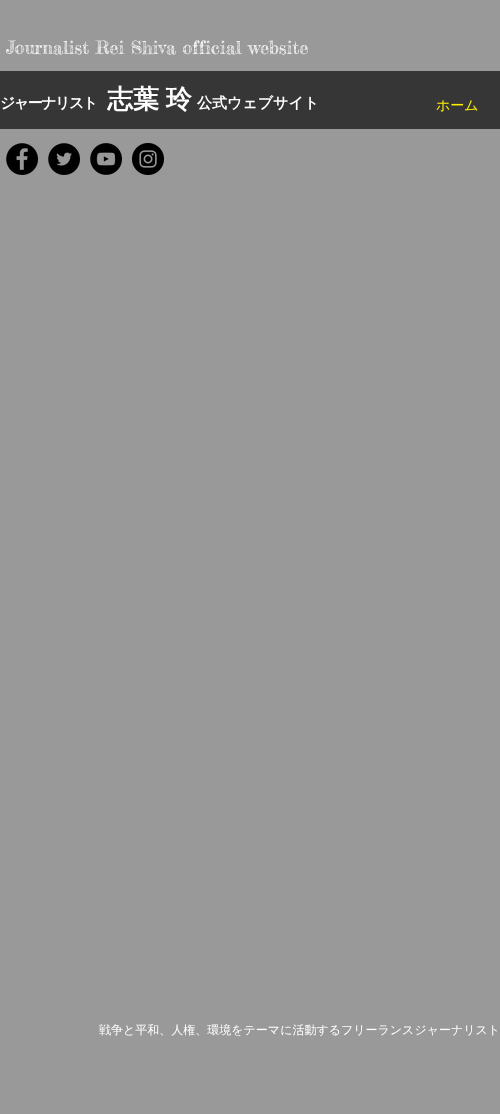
(async () => {
    const canvas = document.querySelector("canvas");
    canvas.width = 500;
    canvas.height = 1114;
    const context = canvas.getContext("2d");
    context.miterLimit = 4;
    context.fontKerning = "normal";
    function write(s, x, y, font, color) {
        context.font = font;
        context.fillStyle = color;
        context.fillText(s, x, y);
    }
    function block(x, y, w, h, color) {
        context.fillStyle = color;
        context.fillRect(x, y, w, h);
    }
    async function photo(src, x, y, w, h) {
        const img = new Image();
        img.src = src;
        await img.decode();
        context.drawImage(img, x, y, w, h);
    }

    block(0, 0, 500, 1114, "rgb(153, 153, 153)");
    write("Journalist Rei Shiva official website", 6, 54, "18px Fredericka the Great", "rgb(255, 255, 255)");
    block(0, 71, 500, 58, "rgb(54, 54, 54)");
    context.letterSpacing = "-1.5px";
    write("ジャーナリスト", 0, 108, "bold 15px WenQuanYi Zen Hei", "rgb(255, 255, 255)");
    context.letterSpacing = "0px";
    context.wordSpacing = "-1px";
    write("志葉 玲", 107, 108, "bold 26px WenQuanYi Zen Hei", "rgb(255, 255, 255)");
    context.wordSpacing = "0px";
    write("公式ウェブサイト", 197, 108, "bold 15px WenQuanYi Zen Hei", "rgb(255, 255, 255)");
    write("ホーム", 436, 110, "500 14px WenQuanYi Zen Hei", "rgb(255, 242, 0)");
    await photo("media/1.png", 6, 143, 32, 32);
    await photo("media/2.png", 48, 143, 32, 32);
    await photo("media/3.png", 90, 143, 32, 32);
    await photo("media/4.png", 132, 143, 32, 32);
    write("戦争と平和、人権、環境をテーマに活動するフリーランスジャーナリスト", 99, 1034, "500 12px WenQuanYi Zen Hei", "rgb(255, 255, 255)");
})();
